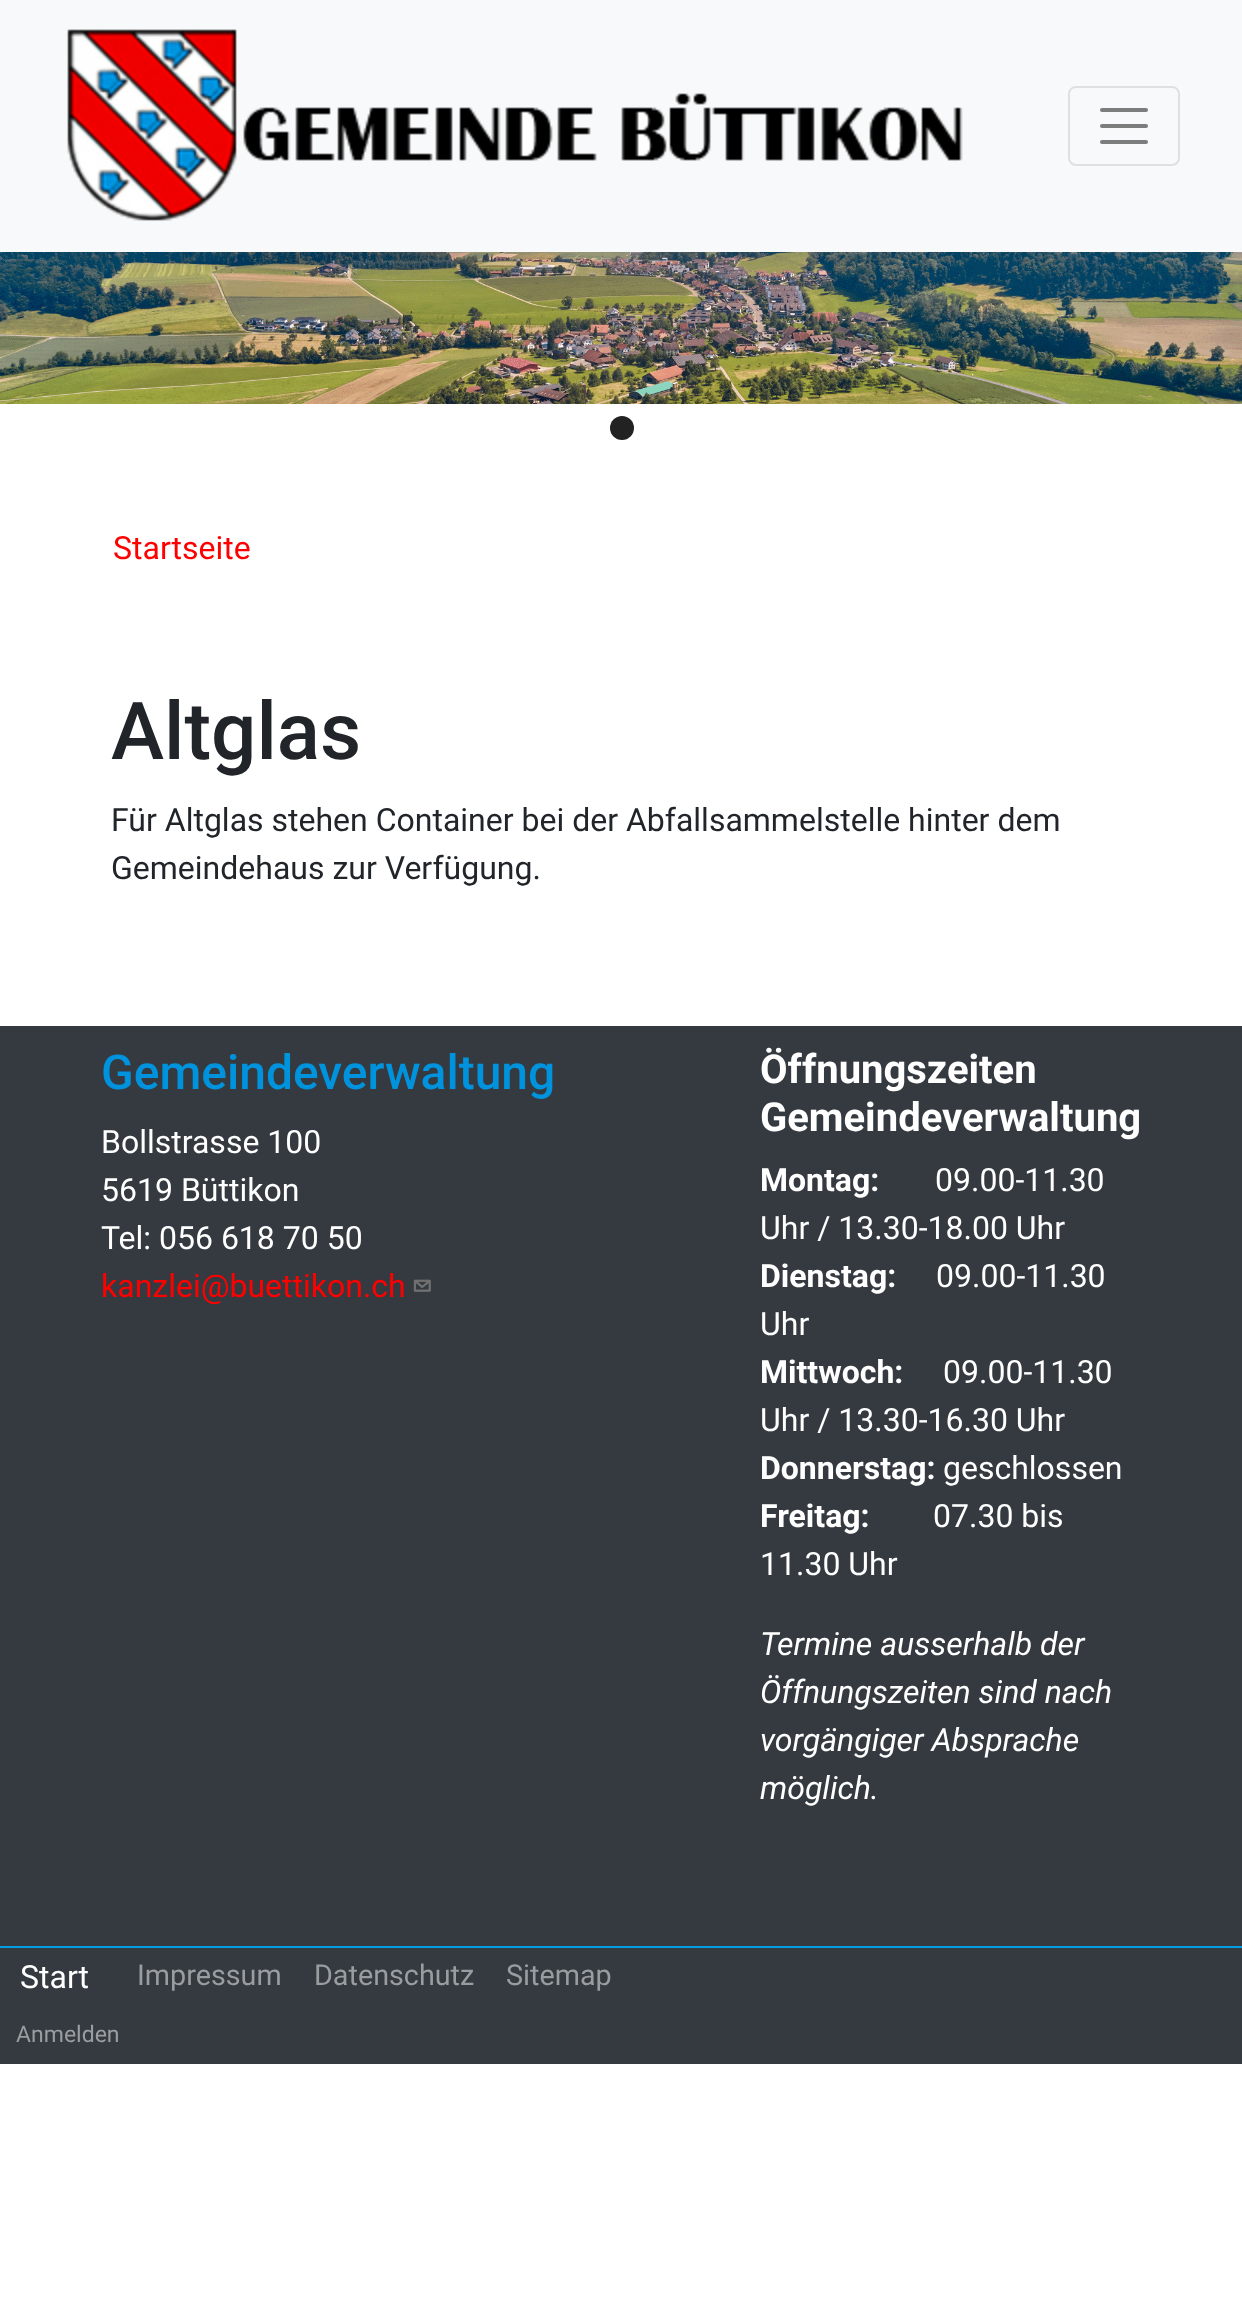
(async () => {
    const canvas = document.querySelector("canvas");
    canvas.width = 1242;
    canvas.height = 2305;
    const context = canvas.getContext("2d");
    context.miterLimit = 4;
    context.fontKerning = "normal";
    function write(s, x, y, font, color) {
        context.font = font;
        context.fillStyle = color;
        context.fillText(s, x, y);
    }
    function block(x, y, w, h, color) {
        context.fillStyle = color;
        context.fillRect(x, y, w, h);
    }
    async function photo(src, x, y, w, h) {
        const img = new Image();
        img.src = src;
        await img.decode();
        context.drawImage(img, x, y, w, h);
    }

    block(0, 0, 1242, 2305, "rgb(255, 255, 255)");
    block(0, 0, 1242, 252, "rgb(248, 249, 250)");
    await photo("media/1.png", 67, 29, 896, 192);
    context.beginPath();
    context.roundRect(1069, 87, 110, 78, 7);
    context.strokeStyle = "rgb(223, 224, 225)";
    context.lineWidth = 2;
    context.stroke();
    context.beginPath();
    context.moveTo(1102, 110);
    context.lineTo(1146, 110);
    context.moveTo(1102, 126);
    context.lineTo(1146, 126);
    context.moveTo(1102, 142);
    context.lineTo(1146, 142);
    context.strokeStyle = "rgb(124, 125, 125)";
    context.lineWidth = 4;
    context.lineCap = "round";
    context.stroke();
    await photo("media/2.png", 0, 252, 1242, 152);
    context.fillStyle = "rgb(34, 34, 34)";
    context.beginPath();
    context.arc(622, 428, 12, 0, Math.PI * 2);
    context.fill();
    write("Startseite", 113, 559, "32px Roboto", "rgb(255, 0, 0)");
    write("Altglas", 111, 759, "500 80px Roboto", "rgb(33, 37, 41)");
    write("Für Altglas stehen Container bei der Abfallsammelstelle hinter dem", 111, 831, "32px Roboto", "rgb(33, 37, 41)");
    write("Gemeindehaus zur Verfügung.", 111, 879, "32px Roboto", "rgb(33, 37, 41)");
    block(0, 1026, 1242, 920, "rgb(52, 58, 64)");
    write("Gemeindeverwaltung", 101, 1089, "500 48px Roboto", "rgb(0, 147, 221)");
    write("Bollstrasse 100", 101, 1153, "32px Roboto", "rgb(255, 255, 255)");
    write("5619 Büttikon", 101, 1201, "32px Roboto", "rgb(255, 255, 255)");
    write("Tel: 056 618 70 50", 101, 1249, "32px Roboto", "rgb(255, 255, 255)");
    write("kanzlei@buettikon.ch", 101, 1297, "32px Roboto", "rgb(255, 0, 0)");
    await photo("media/3.png", 413, 1279, 18, 13);
    write("Öffnungszeiten", 760, 1083, "bold 40px Roboto", "rgb(255, 255, 255)");
    write("Gemeindeverwaltung", 760, 1131, "bold 40px Roboto", "rgb(255, 255, 255)");
    write("Montag:", 760, 1191, "bold 32px Roboto", "rgb(255, 255, 255)");
    write("09.00-11.30", 935, 1191, "32px Roboto", "rgb(255, 255, 255)");
    write("Uhr / 13.30-18.00 Uhr", 760, 1239, "32px Roboto", "rgb(255, 255, 255)");
    write("Dienstag:", 760, 1287, "bold 32px Roboto", "rgb(255, 255, 255)");
    write("09.00-11.30", 936, 1287, "32px Roboto", "rgb(255, 255, 255)");
    write("Uhr", 760, 1335, "32px Roboto", "rgb(255, 255, 255)");
    write("Mittwoch:", 760, 1383, "bold 32px Roboto", "rgb(255, 255, 255)");
    write("09.00-11.30", 943, 1383, "32px Roboto", "rgb(255, 255, 255)");
    write("Uhr / 13.30-16.30 Uhr", 760, 1431, "32px Roboto", "rgb(255, 255, 255)");
    write("Donnerstag:", 760, 1479, "bold 32px Roboto", "rgb(255, 255, 255)");
    write("geschlossen", 943, 1479, "32px Roboto", "rgb(255, 255, 255)");
    write("Freitag:", 760, 1527, "bold 32px Roboto", "rgb(255, 255, 255)");
    write("07.30 bis", 933, 1527, "32px Roboto", "rgb(255, 255, 255)");
    write("11.30 Uhr", 760, 1575, "32px Roboto", "rgb(255, 255, 255)");
    write("Termine ausserhalb der", 760, 1655, "italic 32px Roboto", "rgb(255, 255, 255)");
    write("Öffnungszeiten sind nach", 760, 1703, "italic 32px Roboto", "rgb(255, 255, 255)");
    write("vorgängiger Absprache", 760, 1751, "italic 32px Roboto", "rgb(255, 255, 255)");
    write("möglich.", 760, 1799, "italic 32px Roboto", "rgb(255, 255, 255)");
    block(0, 1946, 1242, 2, "rgb(0, 158, 224)");
    block(0, 1948, 1242, 116, "rgb(52, 58, 64)");
    write("Start", 20, 1988, "32px Roboto", "rgb(255, 255, 255)");
    write("Impressum", 137, 1985, "28.75px Roboto", "rgb(154, 157, 160)");
    write("Datenschutz", 314, 1985, "28.75px Roboto", "rgb(154, 157, 160)");
    write("Sitemap", 506, 1985, "28.75px Roboto", "rgb(154, 157, 160)");
    write("Anmelden", 16, 2042, "23px Roboto", "rgb(154, 157, 160)");
})();
